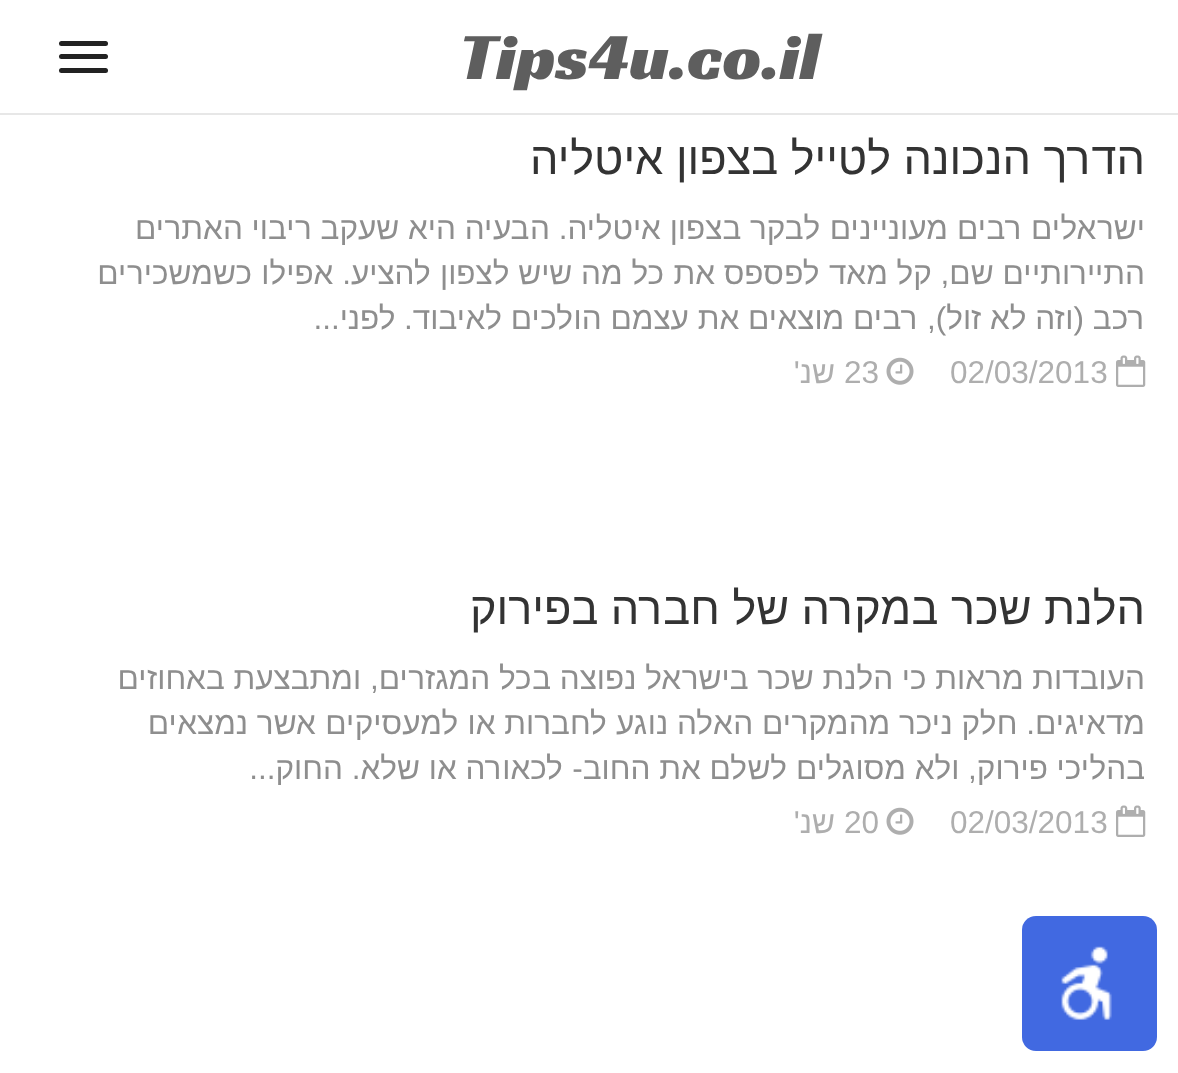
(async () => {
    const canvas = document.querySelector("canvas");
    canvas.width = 1178;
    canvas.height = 1073;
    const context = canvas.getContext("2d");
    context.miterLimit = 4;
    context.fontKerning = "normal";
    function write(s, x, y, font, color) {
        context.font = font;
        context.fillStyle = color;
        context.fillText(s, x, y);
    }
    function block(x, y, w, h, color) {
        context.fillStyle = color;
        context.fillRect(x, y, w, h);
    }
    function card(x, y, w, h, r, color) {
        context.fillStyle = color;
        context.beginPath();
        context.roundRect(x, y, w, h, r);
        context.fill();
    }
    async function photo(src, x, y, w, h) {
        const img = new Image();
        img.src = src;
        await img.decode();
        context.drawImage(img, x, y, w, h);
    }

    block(0, 0, 1178, 1073, "rgb(255, 255, 255)");
    block(0, 113, 1178, 2, "rgb(231, 231, 231)");
    write("Tips4u.co.il", 459, 79, "67.5px Racing Sans One", "rgb(94, 94, 94)");
    card(59, 41, 49, 5, 2.5, "rgb(34, 34, 34)");
    card(59, 54, 49, 5, 2.5, "rgb(34, 34, 34)");
    card(59, 68, 49, 5, 2.5, "rgb(34, 34, 34)");
    context.direction = "rtl";
    write("הדרך הנכונה לטייל בצפון איטליה", 1145, 174, "45px Arimo", "rgb(51, 51, 51)");
    write("ישראלים רבים מעוניינים לבקר בצפון איטליה. הבעיה היא שעקב ריבוי האתרים", 1145, 239, "31.5px Arimo", "rgb(142, 142, 142)");
    write("התיירותיים שם, קל מאד לפספס את כל מה שיש לצפון להציע. אפילו כשמשכירים", 1145, 284, "31.5px Arimo", "rgb(142, 142, 142)");
    write("רכב (וזה לא זול), רבים מוצאים את עצמם הולכים לאיבוד.", 1145, 329, "31.5px Arimo", "rgb(142, 142, 142)");
    write("לפני...", 396, 329, "31.5px Arimo", "rgb(142, 142, 142)");
    await photo("media/1.png", 1116, 355, 30, 32);
    context.direction = "ltr";
    write("02/03/2013", 950, 383, "31.5px Arimo", "rgb(174, 174, 174)");
    await photo("media/2.png", 886, 357, 28, 28);
    write("23", 844, 383, "31.5px Arimo", "rgb(174, 174, 174)");
    context.direction = "rtl";
    write("שנ'", 835, 383, "31.5px Arimo", "rgb(174, 174, 174)");
    write("הלנת שכר במקרה של חברה בפירוק", 1145, 624, "45px Arimo", "rgb(51, 51, 51)");
    write("העובדות מראות כי הלנת שכר בישראל נפוצה בכל המגזרים, ומתבצעת באחוזים", 1145, 689, "31.5px Arimo", "rgb(142, 142, 142)");
    write("מדאיגים. חלק ניכר מהמקרים האלה נוגע לחברות או למעסיקים אשר נמצאים", 1145, 734, "31.5px Arimo", "rgb(142, 142, 142)");
    write("בהליכי פירוק, ולא מסוגלים לשלם את החוב- לכאורה או שלא.", 1145, 779, "31.5px Arimo", "rgb(142, 142, 142)");
    write("החוק...", 343, 779, "31.5px Arimo", "rgb(142, 142, 142)");
    await photo("media/1.png", 1116, 805, 30, 32);
    context.direction = "ltr";
    write("02/03/2013", 950, 833, "31.5px Arimo", "rgb(174, 174, 174)");
    await photo("media/2.png", 886, 807, 28, 28);
    write("20", 844, 833, "31.5px Arimo", "rgb(174, 174, 174)");
    context.direction = "rtl";
    write("שנ'", 835, 833, "31.5px Arimo", "rgb(174, 174, 174)");
    card(1022, 916, 135, 135, 14, "rgb(65, 105, 225)");
    await photo("media/3.png", 1061, 946, 51, 74);
})();
